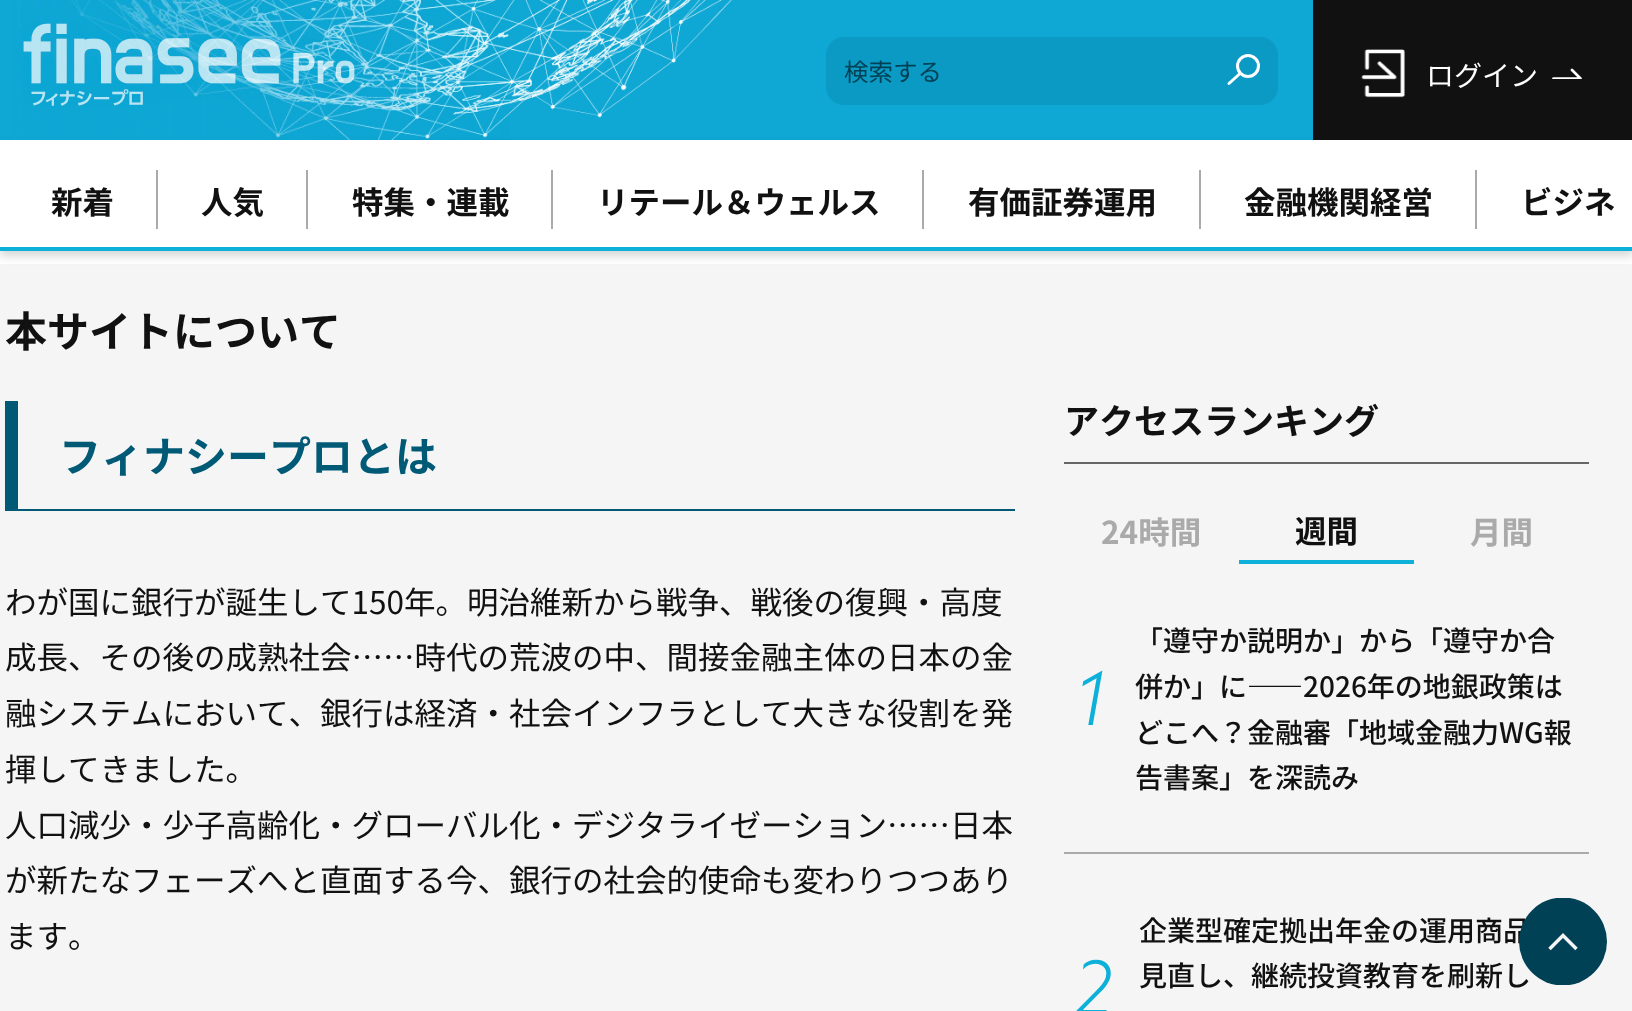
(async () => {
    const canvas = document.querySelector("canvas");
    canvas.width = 1632;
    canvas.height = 1011;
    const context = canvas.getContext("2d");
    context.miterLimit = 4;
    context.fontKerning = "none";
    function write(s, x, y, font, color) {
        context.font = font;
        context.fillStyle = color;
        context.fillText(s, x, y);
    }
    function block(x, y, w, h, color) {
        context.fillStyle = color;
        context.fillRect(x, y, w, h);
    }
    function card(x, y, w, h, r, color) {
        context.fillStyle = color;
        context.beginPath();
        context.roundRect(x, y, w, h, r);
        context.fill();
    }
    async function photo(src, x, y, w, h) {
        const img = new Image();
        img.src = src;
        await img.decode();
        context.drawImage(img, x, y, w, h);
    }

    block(0, 0, 1632, 1011, "rgb(255, 255, 255)");
    block(0, 0, 1313, 140, "rgb(15, 167, 212)");
    block(0, 264, 1632, 747, "rgb(245, 245, 245)");
    context.save();
    context.beginPath();
    context.moveTo(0, 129);
    context.lineTo(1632, 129);
    context.lineTo(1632, 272);
    context.lineTo(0, 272);
    context.closePath();
    context.moveTo(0, 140);
    context.lineTo(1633, 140);
    context.lineTo(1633, 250);
    context.lineTo(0, 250);
    context.closePath();
    context.clip("evenodd");
    context.fillStyle = "rgba(0, 0, 0, 0.16)";
    context.filter = "blur(5px)";
    context.beginPath();
    context.rect(0, 145, 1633, 111);
    context.fill();
    context.filter = "none";
    context.restore();
    await photo("media/1.png", 12, 0, 720, 140);
    await photo("media/2.png", 23, 23, 343, 83);
    card(826, 37, 452, 68, 18, "rgb(11, 154, 196)");
    write("検索する", 844, 81, "24.5px Noto Sans JP", "rgb(0, 65, 85)");
    context.beginPath();
    context.arc(1248, 66, 10.5, 0, Math.PI * 2);
    context.strokeStyle = "rgb(255, 255, 255)";
    context.lineWidth = 3;
    context.stroke();
    context.beginPath();
    context.moveTo(1229, 83.5);
    context.lineTo(1240, 73.5);
    context.lineCap = "round";
    context.stroke();
    block(1313, 0, 319, 140, "rgb(17, 17, 17)");
    await photo("media/3.png", 1361, 49, 44, 49);
    write("ログイン", 1426, 86, "28px Noto Sans JP", "rgb(255, 255, 255)");
    context.save();
    context.beginPath();
    context.rect(1552, 68, 30, 11);
    context.clip();
    context.beginPath();
    context.moveTo(1553.5, 78.5);
    context.lineTo(1580.5, 78.5);
    context.lineTo(1572, 70);
    context.lineWidth = 2.7;
    context.lineJoin = "round";
    context.stroke();
    context.restore();
    block(0, 247, 1632, 4, "rgb(12, 176, 217)");
    write("新着", 51, 214, "bold 31.5px Noto Sans JP", "rgb(17, 17, 17)");
    block(156, 170, 2, 59, "rgb(170, 170, 170)");
    write("人気", 201, 214, "bold 31.5px Noto Sans JP", "rgb(17, 17, 17)");
    block(306, 170, 2, 59, "rgb(170, 170, 170)");
    write("特集・連載", 352, 214, "bold 31.5px Noto Sans JP", "rgb(17, 17, 17)");
    block(551, 170, 2, 59, "rgb(170, 170, 170)");
    write("リテール＆ウェルス", 597, 214, "bold 31.5px Noto Sans JP", "rgb(17, 17, 17)");
    block(922, 170, 2, 59, "rgb(170, 170, 170)");
    write("有価証券運用", 968, 214, "bold 31.5px Noto Sans JP", "rgb(17, 17, 17)");
    block(1199, 170, 2, 59, "rgb(170, 170, 170)");
    write("金融機関経営", 1244, 214, "bold 31.5px Noto Sans JP", "rgb(17, 17, 17)");
    block(1475, 170, 2, 59, "rgb(170, 170, 170)");
    write("ビジネ", 1521, 214, "bold 31.5px Noto Sans JP", "rgb(17, 17, 17)");
    write("本サイトについて", 5, 347, "bold 42px Noto Sans JP", "rgb(17, 17, 17)");
    block(18, 509, 997, 2, "rgb(0, 90, 118)");
    block(5, 401, 13, 110, "rgb(0, 90, 118)");
    write("フィナシープロとは", 59, 472, "bold 42px Noto Sans JP", "rgb(0, 90, 118)");
    write("わが国に銀行が誕生して150年。明治維新から戦争、戦後の復興・高度", 5, 614, "31.5px Noto Sans JP", "rgb(17, 17, 17)");
    write("成長、その後の成熟社会……時代の荒波の中、間接金融主体の日本の金", 5, 669, "31.5px Noto Sans JP", "rgb(17, 17, 17)");
    write("融システムにおいて、銀行は経済・社会インフラとし", 5, 725, "31.5px Noto Sans JP", "rgb(17, 17, 17)");
    write("て大きな役割を発", 761, 725, "31.5px Noto Sans JP", "rgb(17, 17, 17)");
    write("揮してきました。", 5, 781, "31.5px Noto Sans JP", "rgb(17, 17, 17)");
    write("人口減少・少子高齢化・グローバル化・デジタライゼーション……日本", 5, 837, "31.5px Noto Sans JP", "rgb(17, 17, 17)");
    write("が新たなフェーズへと直面する今、銀行の社会的使命も変わりつつあり", 5, 892, "31.5px Noto Sans JP", "rgb(17, 17, 17)");
    write("ます。", 5, 948, "31.5px Noto Sans JP", "rgb(17, 17, 17)");
    block(1064, 462, 525, 2, "rgb(102, 102, 102)");
    write("アクセスランキング", 1064, 434, "bold 35px Noto Sans JP", "rgb(17, 17, 17)");
    write("24時間", 1101, 544, "bold 31.5px Noto Sans JP", "rgb(170, 170, 170)");
    block(1239, 560, 175, 4, "rgb(12, 176, 217)");
    write("週間", 1295, 543, "bold 31.5px Noto Sans JP", "rgb(17, 17, 17)");
    write("月間", 1470, 544, "bold 31.5px Noto Sans JP", "rgb(170, 170, 170)");
    block(1064, 852, 525, 2, "rgb(170, 170, 170)");
    write("1", 1073, 725, "italic 300 74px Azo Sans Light", "rgb(12, 176, 217)");
    write("「遵守か説明か」から「遵守か合", 1135, 651, "500 28px Noto Sans JP", "rgb(17, 17, 17)");
    write("併か」に――2026年の地銀政策は", 1135, 697, "500 28px Noto Sans JP", "rgb(17, 17, 17)");
    write("どこへ？金融審「地域金融力WG報", 1135, 743, "500 28px Noto Sans JP", "rgb(17, 17, 17)");
    write("告書案」を深読み", 1135, 788, "500 28px Noto Sans JP", "rgb(17, 17, 17)");
    write("2", 1073, 1014, "italic 300 74px Azo Sans Light", "rgb(12, 176, 217)");
    write("企業型確定拠出年金の運用商品", 1139, 941, "500 28px Noto Sans JP", "rgb(17, 17, 17)");
    write("見直し、継続投資教育を刷新し", 1139, 986, "500 28px Noto Sans JP", "rgb(17, 17, 17)");
    context.save();
    context.beginPath();
    context.rect(1519, 898, 88, 87);
    context.clip();
    context.fillStyle = "rgb(0, 65, 85)";
    context.beginPath();
    context.arc(1563, 941.5, 44, 0, Math.PI * 2);
    context.fill();
    context.restore();
    context.beginPath();
    context.moveTo(1549.5, 949);
    context.lineTo(1563, 935.5);
    context.lineTo(1576.5, 949);
    context.strokeStyle = "rgb(245, 245, 245)";
    context.lineWidth = 3.5;
    context.lineCap = "butt";
    context.stroke();
})();
